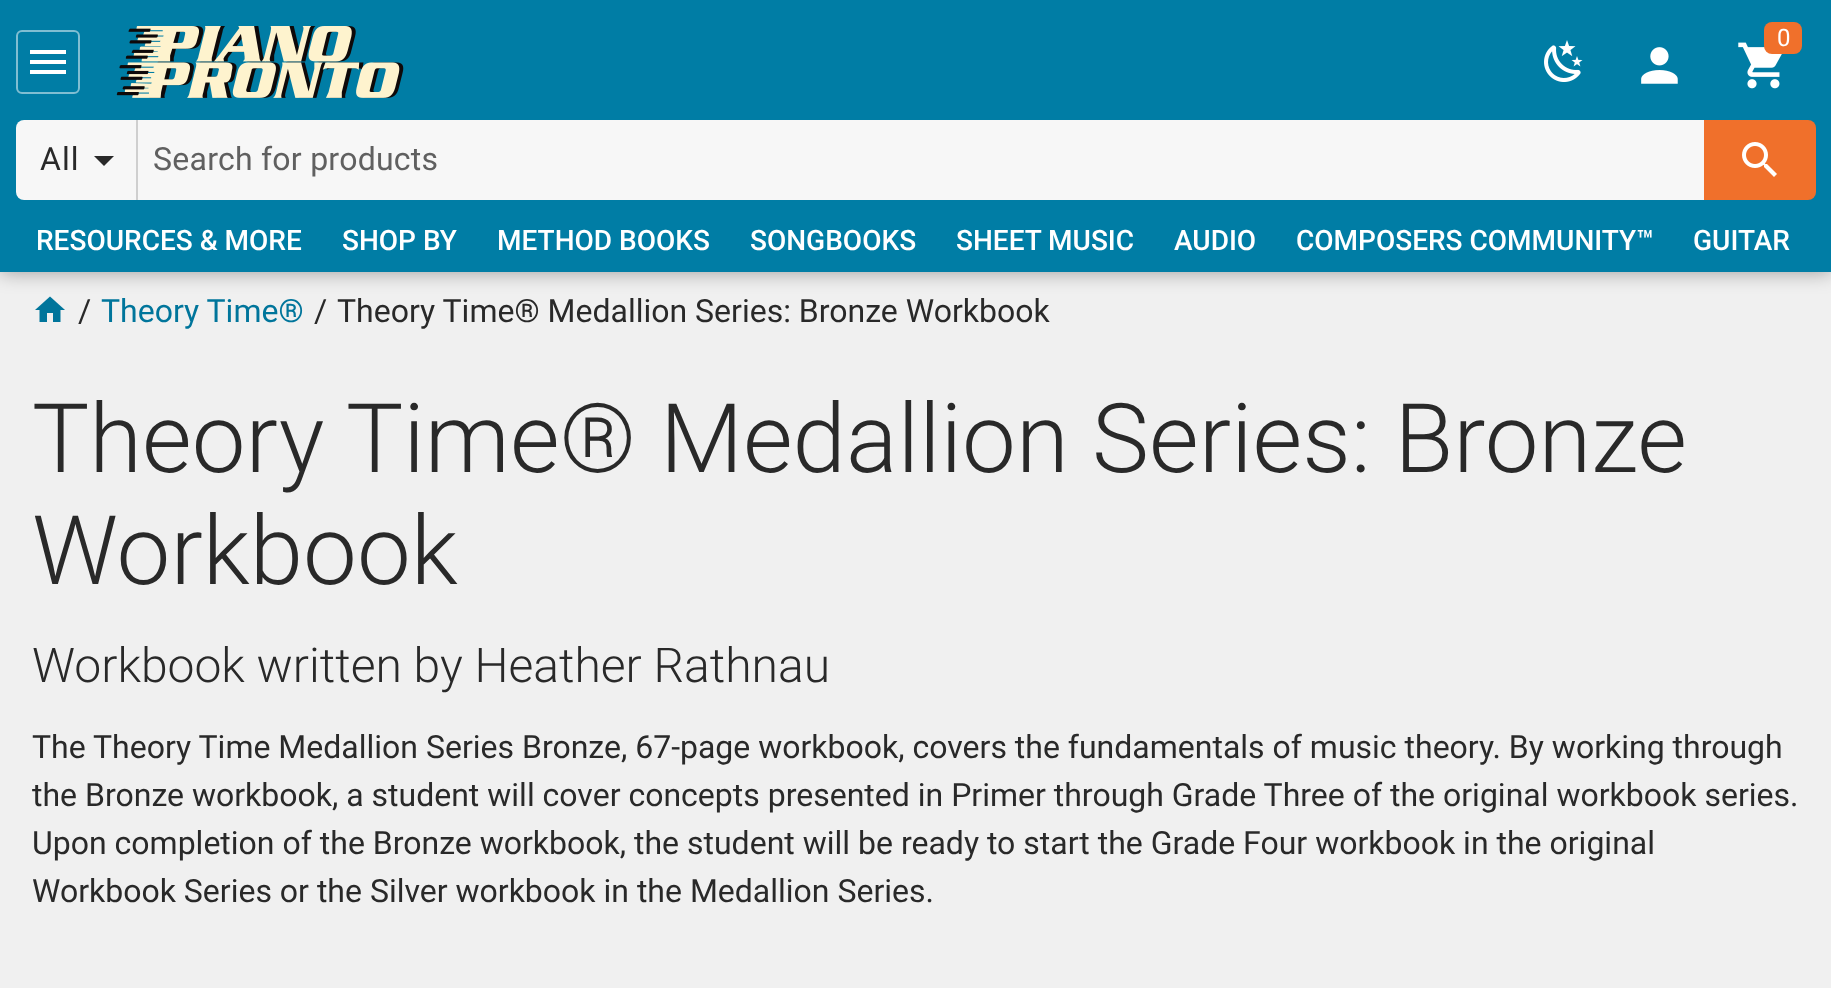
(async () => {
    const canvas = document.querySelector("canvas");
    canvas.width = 1831;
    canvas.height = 988;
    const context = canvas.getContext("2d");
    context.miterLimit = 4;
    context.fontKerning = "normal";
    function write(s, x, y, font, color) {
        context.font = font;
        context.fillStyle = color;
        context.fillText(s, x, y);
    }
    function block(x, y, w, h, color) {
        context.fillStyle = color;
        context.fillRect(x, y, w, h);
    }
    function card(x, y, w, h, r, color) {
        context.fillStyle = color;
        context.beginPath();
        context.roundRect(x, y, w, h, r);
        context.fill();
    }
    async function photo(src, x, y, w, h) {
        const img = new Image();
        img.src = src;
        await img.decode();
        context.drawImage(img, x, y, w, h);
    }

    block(0, 0, 1831, 988, "rgb(240, 240, 240)");
    await photo("media/7.png", 35, 296, 30, 26);
    context.fillStyle = "rgba(0, 0, 0, 0.36)";
    context.filter = "blur(10px)";
    context.beginPath();
    context.rect(0, 0, 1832, 272);
    context.fill();
    context.filter = "none";
    block(0, 0, 1831, 272, "rgb(0, 125, 165)");
    context.beginPath();
    context.roundRect(17, 31, 62, 62, 5);
    context.strokeStyle = "rgb(128, 190, 210)";
    context.lineWidth = 2;
    context.stroke();
    await photo("media/1.png", 30, 50, 36, 24);
    await photo("media/2.png", 116, 26, 288, 72);
    await photo("media/3.png", 1738, 42, 44, 47);
    card(1764, 22, 38, 32, 8, "rgb(240, 112, 43)");
    write("0", 1777, 46, "24px Roboto", "rgb(255, 255, 255)");
    await photo("media/4.png", 1641, 47, 37, 37);
    await photo("media/5.png", 1544, 40, 39, 42);
    context.fillStyle = "rgb(247, 247, 247)";
    context.beginPath();
    context.roundRect(16, 120, 122, 80, [8, 0, 0, 8]);
    context.fill();
    block(136, 120, 2, 80, "rgb(207, 207, 207)");
    context.letterSpacing = "1px";
    write("All", 40, 170, "32px Roboto", "rgb(41, 41, 41)");
    context.beginPath();
    context.moveTo(94, 156);
    context.lineTo(104, 166);
    context.lineTo(114, 156);
    context.closePath();
    context.fill();
    block(138, 120, 1566, 80, "rgb(247, 247, 247)");
    context.letterSpacing = "0.25px";
    write("Search for products", 153, 170, "32px Roboto", "rgb(96, 96, 96)");
    context.fillStyle = "rgb(240, 112, 43)";
    context.beginPath();
    context.roundRect(1704, 120, 112, 80, [0, 8, 8, 0]);
    context.fill();
    await photo("media/6.png", 1742, 142, 35, 35);
    context.letterSpacing = "0px";
    write("RESOURCES & MORE", 36, 250, "500 28px Roboto", "rgb(255, 255, 255)");
    write("SHOP BY", 342, 250, "500 28px Roboto", "rgb(255, 255, 255)");
    write("METHOD BOOKS", 497, 250, "500 28px Roboto", "rgb(255, 255, 255)");
    write("SONGBOOKS", 750, 250, "500 28px Roboto", "rgb(255, 255, 255)");
    write("SHEET MUSIC", 956, 250, "500 28px Roboto", "rgb(255, 255, 255)");
    write("AUDIO", 1174, 250, "500 28px Roboto", "rgb(255, 255, 255)");
    write("COMPOSERS COMMUNITY™", 1296, 250, "500 28px Roboto", "rgb(255, 255, 255)");
    write("GUITAR", 1693, 250, "500 28px Roboto", "rgb(255, 255, 255)");
    write("/", 78, 322, "32px Roboto", "rgb(41, 41, 41)");
    write("Theory Time®", 101, 322, "32px Roboto", "rgb(0, 117, 155)");
    write("/", 314, 322, "32px Roboto", "rgb(41, 41, 41)");
    write("Theory Time® Medallion Series: Bronze Workbook", 337, 322, "32px Roboto", "rgb(41, 41, 41)");
    write("Theory Time® Medallion Series: Bronze", 32, 472, "300 96px Roboto", "rgb(41, 41, 41)");
    write("Workbook", 32, 584, "300 96px Roboto", "rgb(41, 41, 41)");
    write("Workbook written by Heather Rathnau", 32, 682, "300 48px Roboto", "rgb(41, 41, 41)");
    write("The Theory Time Medallion Series Bronze, 67-page workbook, covers the fundamentals of music theory. By working through", 32, 758, "32px Roboto", "rgb(41, 41, 41)");
    write("the Bronze workbook, a student will cover concepts presented in Primer through Grade Three of the original workbook series.", 32, 806, "32px Roboto", "rgb(41, 41, 41)");
    write("Upon completion of the Bronze workbook, the student will be ready to start the Grade Four workbook in the original", 32, 854, "32px Roboto", "rgb(41, 41, 41)");
    write("Workbook Series or the Silver workbook in the Medallion Series.", 32, 902, "32px Roboto", "rgb(41, 41, 41)");
})();
